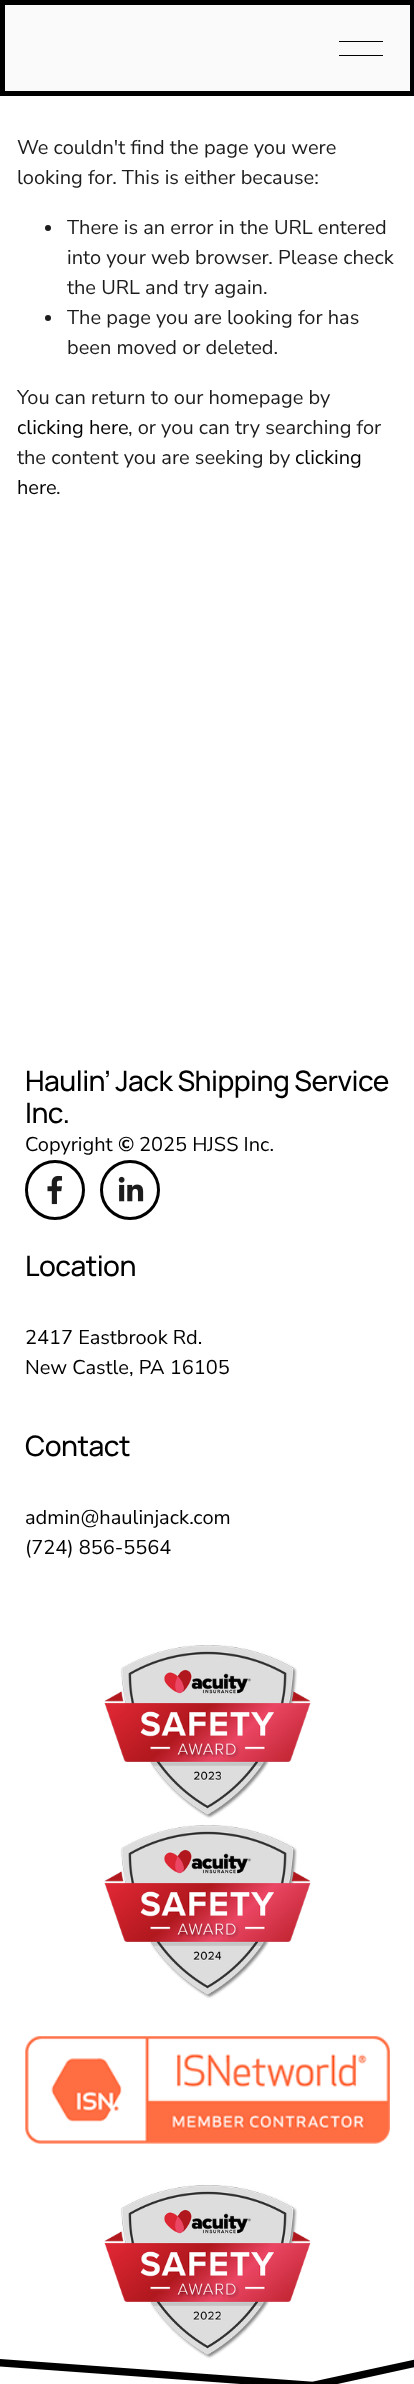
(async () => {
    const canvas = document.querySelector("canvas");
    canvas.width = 414;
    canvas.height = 2384;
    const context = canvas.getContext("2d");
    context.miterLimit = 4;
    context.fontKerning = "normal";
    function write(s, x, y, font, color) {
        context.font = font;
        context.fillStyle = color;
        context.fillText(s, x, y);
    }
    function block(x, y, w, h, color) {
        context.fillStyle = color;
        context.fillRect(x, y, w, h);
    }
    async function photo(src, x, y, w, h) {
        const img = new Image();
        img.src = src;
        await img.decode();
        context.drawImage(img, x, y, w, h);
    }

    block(0, 0, 414, 2384, "rgb(255, 255, 255)");
    context.fillStyle = "rgb(250, 250, 250)";
    context.beginPath();
    context.rect(2.5, 2.5, 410, 91);
    context.fill();
    context.strokeStyle = "rgb(0, 0, 0)";
    context.lineWidth = 5;
    context.stroke();
    block(339, 41, 44, 1, "rgb(0, 0, 0)");
    block(339, 55, 44, 1, "rgb(0, 0, 0)");
    write("We couldn't find the page you were", 17, 154, "20px Nunito Sans", "rgb(28, 28, 28)");
    write("looking for. This is either because:", 17, 184, "20px Nunito Sans", "rgb(28, 28, 28)");
    context.beginPath();
    context.arc(48, 228, 3, 0, Math.PI * 2);
    context.fill();
    write("There is an error in the URL entered", 67, 234, "20px Nunito Sans", "rgb(28, 28, 28)");
    write("into your web browser. Please check", 67, 264, "20px Nunito Sans", "rgb(28, 28, 28)");
    write("the URL and try again.", 67, 294, "20px Nunito Sans", "rgb(28, 28, 28)");
    context.beginPath();
    context.arc(48, 318, 3, 0, Math.PI * 2);
    context.fill();
    write("The page you are looking for has", 67, 324, "20px Nunito Sans", "rgb(28, 28, 28)");
    write("been moved or deleted.", 67, 354, "20px Nunito Sans", "rgb(28, 28, 28)");
    write("You can return to our homepage by", 17, 404, "20px Nunito Sans", "rgb(28, 28, 28)");
    write("clicking here", 17, 434, "20px Nunito Sans", "rgb(0, 0, 0)");
    write(", or you can try searching for", 128, 434, "20px Nunito Sans", "rgb(28, 28, 28)");
    write("the content you are seeking by", 17, 464, "20px Nunito Sans", "rgb(28, 28, 28)");
    write("clicking", 295, 464, "20px Nunito Sans", "rgb(0, 0, 0)");
    write("here", 17, 494, "20px Nunito Sans", "rgb(0, 0, 0)");
    write(".", 56, 494, "20px Nunito Sans", "rgb(28, 28, 28)");
    context.letterSpacing = "-0.55px";
    write("Haulin’ Jack Shipping Service", 25, 1091, "500 28.1px Manrope", "rgb(0, 0, 0)");
    write("Inc.", 25, 1123, "500 28.1px Manrope", "rgb(0, 0, 0)");
    context.letterSpacing = "0px";
    write("Copyright", 25, 1151, "20px Nunito Sans", "rgb(0, 0, 0)");
    write("©", 118, 1151, "bold 20px Nunito Sans", "rgb(0, 0, 0)");
    write("2025 HJSS Inc.", 139, 1151, "20px Nunito Sans", "rgb(0, 0, 0)");
    context.beginPath();
    context.arc(55, 1190, 28.5, 0, Math.PI * 2);
    context.lineWidth = 3;
    context.stroke();
    await photo("media/1.png", 47, 1175, 16, 30);
    context.beginPath();
    context.arc(130, 1190, 28.5, 0, Math.PI * 2);
    context.stroke();
    await photo("media/2.png", 118, 1176, 26, 26);
    context.letterSpacing = "-0.55px";
    write("Location", 25, 1276, "500 28.1px Manrope", "rgb(0, 0, 0)");
    context.letterSpacing = "0px";
    write("2417 Eastbrook Rd.", 25, 1344, "20px Nunito Sans", "rgb(0, 0, 0)");
    write("New Castle, PA 16105", 25, 1374, "20px Nunito Sans", "rgb(0, 0, 0)");
    context.letterSpacing = "-0.55px";
    write("Contact", 25, 1456, "500 28.1px Manrope", "rgb(0, 0, 0)");
    context.letterSpacing = "0px";
    write("admin@haulinjack.com", 25, 1524, "20px Nunito Sans", "rgb(0, 0, 0)");
    write("(724) 856-5564", 25, 1554, "20px Nunito Sans", "rgb(0, 0, 0)");
    await photo("media/3.png", 104, 1645, 207, 174);
    await photo("media/4.png", 104, 1825, 207, 174);
    await photo("media/5.png", 25, 2036, 365, 108);
    await photo("media/6.png", 104, 2185, 207, 174);
    context.beginPath();
    context.moveTo(-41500, 1662);
    context.lineTo(-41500, 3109);
    context.moveTo(-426, 2362.5);
    context.lineTo(-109.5, 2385.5);
    context.lineTo(-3.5, 2362.5);
    context.lineTo(313, 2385.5);
    context.lineTo(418.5, 2362.5);
    context.lineTo(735.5, 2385.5);
    context.lineTo(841, 2362.5);
    context.lineWidth = 7.5;
    context.lineCap = "square";
    context.stroke();
})();
